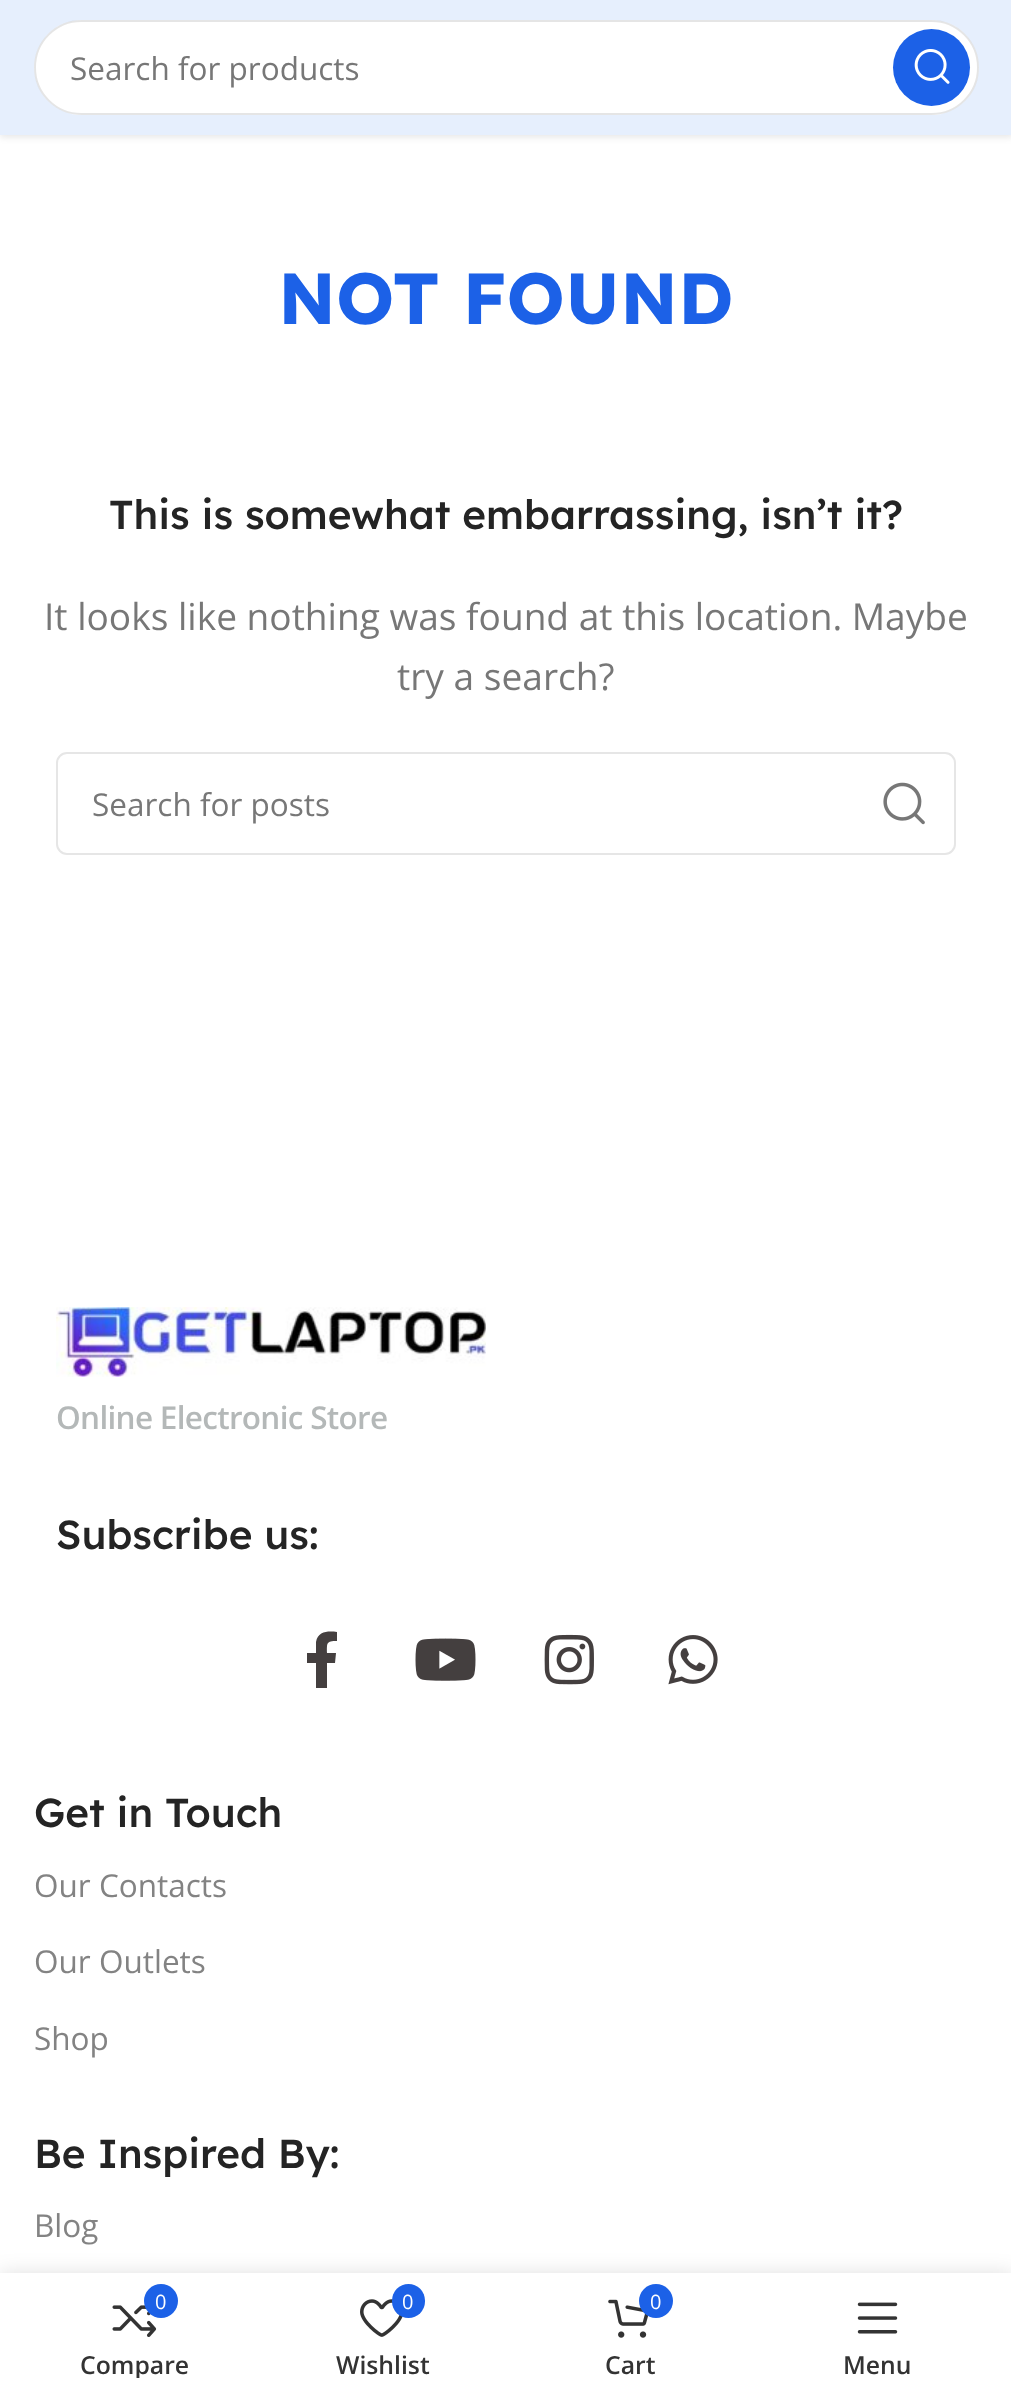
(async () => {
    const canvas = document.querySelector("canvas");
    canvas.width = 1011;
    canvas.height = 2396;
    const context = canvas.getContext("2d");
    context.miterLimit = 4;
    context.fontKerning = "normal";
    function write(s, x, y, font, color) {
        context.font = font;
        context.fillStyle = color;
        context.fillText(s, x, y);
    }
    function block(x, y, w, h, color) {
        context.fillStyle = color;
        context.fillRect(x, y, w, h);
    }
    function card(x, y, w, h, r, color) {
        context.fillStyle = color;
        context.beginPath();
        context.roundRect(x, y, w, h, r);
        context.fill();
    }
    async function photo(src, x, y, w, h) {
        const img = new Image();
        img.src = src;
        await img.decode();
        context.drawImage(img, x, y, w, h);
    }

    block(0, 0, 1011, 2396, "rgb(255, 255, 255)");
    context.fillStyle = "rgba(0, 0, 0, 0.1)";
    context.filter = "blur(3.5px)";
    context.beginPath();
    context.rect(0, 2, 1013, 135);
    context.fill();
    context.filter = "none";
    block(0, 0, 1011, 135, "rgb(230, 239, 253)");
    card(34, 20, 945, 95, 47.5, "rgb(255, 255, 255)");
    context.beginPath();
    context.roundRect(35, 21, 943, 93, 46.5);
    context.strokeStyle = "rgba(0, 0, 0, 0.1)";
    context.lineWidth = 2;
    context.stroke();
    write("Search for products", 70, 80, "31.5px Open Sans", "rgb(119, 119, 119)");
    context.fillStyle = "rgb(28, 97, 231)";
    context.beginPath();
    context.arc(931.5, 67.5, 38.5, 0, Math.PI * 2);
    context.fill();
    await photo("media/1.png", 914, 49, 36, 35);
    write("NOT FOUND", 278, 324, "bold 72px Lexend Deca", "rgb(28, 97, 231)");
    write("This is somewhat embarrassing, isn’t it?", 109, 529, "500 40.5px Lexend Deca", "rgb(36, 36, 36)");
    write("It looks like nothing was found at this location. Maybe", 44, 630, "37.1px Open Sans", "rgb(119, 119, 119)");
    write("try a search?", 397, 690, "37.1px Open Sans", "rgb(119, 119, 119)");
    context.beginPath();
    context.roundRect(57, 753, 898, 101, 10);
    context.strokeStyle = "rgb(230, 230, 230)";
    context.stroke();
    write("Search for posts", 92, 816, "31.5px Open Sans", "rgb(119, 119, 119)");
    await photo("media/2.png", 883, 782, 42, 43);
    await photo("media/3.png", 56, 1307, 430, 70);
    context.letterSpacing = "-0.7px";
    write("Online Electronic Store", 56, 1429, "600 31.5px Open Sans", "rgb(180, 184, 184)");
    context.letterSpacing = "0px";
    write("Subscribe us:", 56, 1549, "500 40.5px Lexend Deca", "rgb(36, 36, 36)");
    context.fillStyle = "rgb(68, 63, 63)";
    context.beginPath();
    context.moveTo(335, 1663);
    context.lineTo(327, 1663);
    context.lineTo(327, 1688);
    context.lineTo(316, 1688);
    context.lineTo(316, 1663);
    context.lineTo(307, 1663);
    context.lineTo(307, 1653);
    context.lineTo(316, 1653);
    context.lineTo(316, 1642);
    context.bezierCurveTo(318, 1631, 328, 1631, 337, 1632);
    context.lineTo(337, 1641);
    context.bezierCurveTo(326, 1641, 327, 1643, 327, 1653);
    context.lineTo(336, 1653);
    context.closePath();
    context.fill();
    await photo("media/4.png", 415, 1638, 61, 43);
    await photo("media/5.png", 544, 1634, 50, 51);
    await photo("media/6.png", 668, 1635, 50, 50);
    write("Get in Touch", 34, 1827, "500 40.5px Lexend Deca", "rgb(36, 36, 36)");
    write("Our Contacts", 34, 1897, "31.5px Open Sans", "rgb(131, 131, 131)");
    write("Our Outlets", 34, 1973, "31.5px Open Sans", "rgb(131, 131, 131)");
    write("Shop", 34, 2050, "31.5px Open Sans", "rgb(131, 131, 131)");
    write("Be Inspired By:", 34, 2168, "500 40.5px Lexend Deca", "rgb(36, 36, 36)");
    write("Blog", 34, 2237, "31.5px Open Sans", "rgb(131, 131, 131)");
    context.fillStyle = "rgba(0, 0, 0, 0.12)";
    context.filter = "blur(10px)";
    context.beginPath();
    context.rect(0, 2273, 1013, 123);
    context.fill();
    context.filter = "none";
    block(0, 2273, 1011, 123, "rgb(255, 255, 255)");
    await photo("media/7.png", 112, 2305, 45, 32);
    context.fillStyle = "rgb(28, 97, 231)";
    context.beginPath();
    context.arc(161, 2301, 17, 0, Math.PI * 2);
    context.fill();
    write("0", 155, 2309, "20px Open Sans", "rgb(255, 255, 255)");
    context.save();
    context.beginPath();
    context.rect(34, 2349, 202, 29);
    context.clip();
    write("Compare", 80, 2374, "600 24.75px Open Sans", "rgb(51, 51, 51)");
    context.restore();
    await photo("media/8.png", 360, 2299, 43, 38);
    card(392, 2284, 33, 34, 16.5, "rgb(28, 97, 231)");
    write("0", 402, 2309, "20px Open Sans", "rgb(255, 255, 255)");
    write("Wishlist", 336, 2374, "600 24.75px Open Sans", "rgb(51, 51, 51)");
    await photo("media/9.png", 608, 2299, 40, 39);
    context.fillStyle = "rgb(28, 97, 231)";
    context.beginPath();
    context.arc(656, 2301, 17, 0, Math.PI * 2);
    context.fill();
    write("0", 650, 2309, "20px Open Sans", "rgb(255, 255, 255)");
    write("Cart", 605, 2374, "600 24.75px Open Sans", "rgb(51, 51, 51)");
    await photo("media/10.png", 857, 2302, 41, 32);
    write("Menu", 843, 2374, "600 24.75px Open Sans", "rgb(51, 51, 51)");
})();
